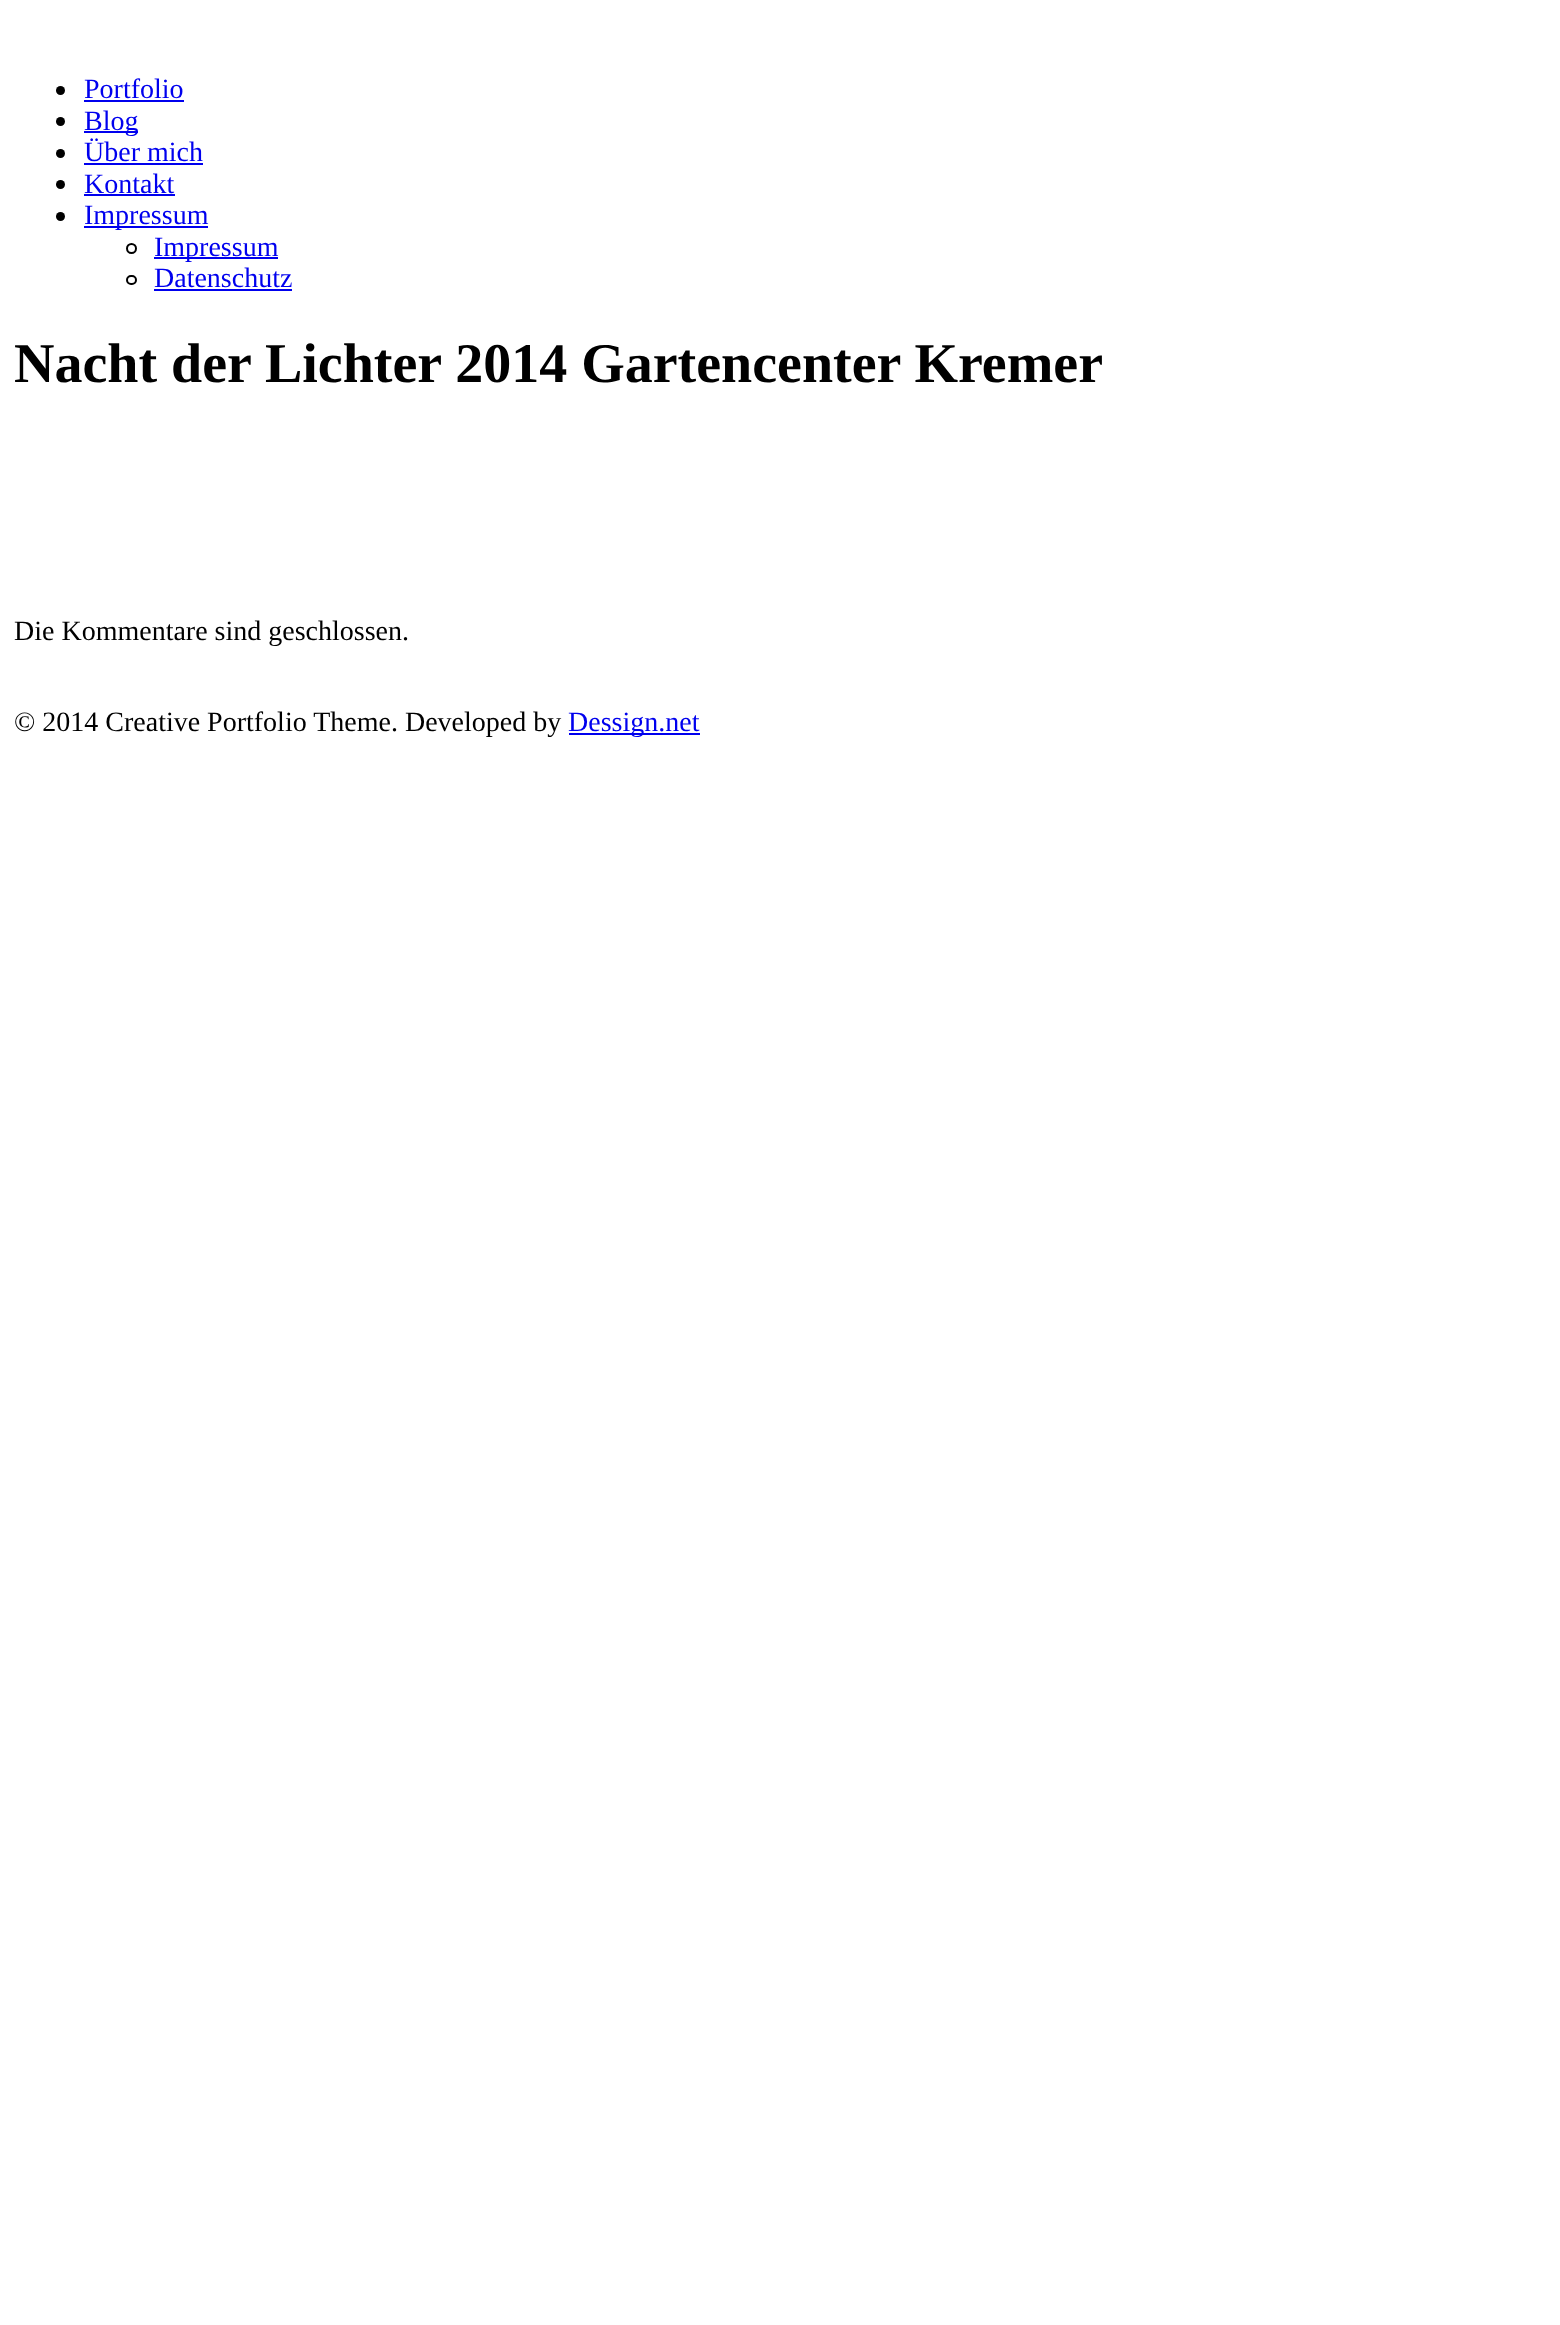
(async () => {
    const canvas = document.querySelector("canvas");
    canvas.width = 1560;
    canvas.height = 2325;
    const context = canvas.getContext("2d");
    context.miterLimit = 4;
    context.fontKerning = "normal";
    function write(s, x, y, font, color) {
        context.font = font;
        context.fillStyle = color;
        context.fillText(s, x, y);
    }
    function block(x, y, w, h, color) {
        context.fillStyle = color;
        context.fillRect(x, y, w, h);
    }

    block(0, 0, 1560, 2325, "rgb(255, 255, 255)");
    context.fillStyle = "rgb(0, 0, 0)";
    context.beginPath();
    context.arc(60.5, 90.5, 4.5, 0, Math.PI * 2);
    context.fill();
    write("Portfolio", 84, 98, "28px Liberation Serif", "rgb(0, 0, 238)");
    block(84, 100, 100, 2, "rgb(0, 0, 238)");
    context.fillStyle = "rgb(0, 0, 0)";
    context.beginPath();
    context.arc(60.5, 121.5, 4.5, 0, Math.PI * 2);
    context.fill();
    block(84, 131, 54, 2, "rgb(0, 0, 238)");
    write("Blog", 84, 130, "28px Liberation Serif", "rgb(0, 0, 238)");
    context.fillStyle = "rgb(0, 0, 0)";
    context.beginPath();
    context.arc(60.5, 153.5, 4.5, 0, Math.PI * 2);
    context.fill();
    write("Über mich", 84, 161, "28px Liberation Serif", "rgb(0, 0, 238)");
    block(84, 163, 119, 2, "rgb(0, 0, 238)");
    context.fillStyle = "rgb(0, 0, 0)";
    context.beginPath();
    context.arc(60.5, 184.5, 4.5, 0, Math.PI * 2);
    context.fill();
    write("Kontakt", 84, 193, "28px Liberation Serif", "rgb(0, 0, 238)");
    block(84, 194, 91, 2, "rgb(0, 0, 238)");
    context.fillStyle = "rgb(0, 0, 0)";
    context.beginPath();
    context.arc(60.5, 216.5, 4.5, 0, Math.PI * 2);
    context.fill();
    block(84, 226, 124, 2, "rgb(0, 0, 238)");
    write("Impressum", 84, 224, "28px Liberation Serif", "rgb(0, 0, 238)");
    context.beginPath();
    context.arc(131.5, 248.5, 4.5, 0, Math.PI * 2);
    context.strokeStyle = "rgb(0, 0, 0)";
    context.lineWidth = 2;
    context.stroke();
    block(154, 257, 124, 2, "rgb(0, 0, 238)");
    write("Impressum", 154, 256, "28px Liberation Serif", "rgb(0, 0, 238)");
    context.beginPath();
    context.roundRect(127, 276, 9, 8, 4);
    context.stroke();
    write("Datenschutz", 154, 287, "28px Liberation Serif", "rgb(0, 0, 238)");
    block(154, 289, 138, 2, "rgb(0, 0, 238)");
    write("Nacht der Lichter 2014 Gartencenter Kremer", 14, 382, "bold 56px Liberation Serif", "rgb(0, 0, 0)");
    write("Die Kommentare sind geschlossen.", 14, 640, "28px Liberation Serif", "rgb(0, 0, 0)");
    write("© 2014 Creative Portfolio Theme. Developed by", 14, 731, "28px Liberation Serif", "rgb(0, 0, 0)");
    block(569, 733, 131, 2, "rgb(0, 0, 238)");
    write("Dessign.net", 568, 731, "28px Liberation Serif", "rgb(0, 0, 238)");
})();
